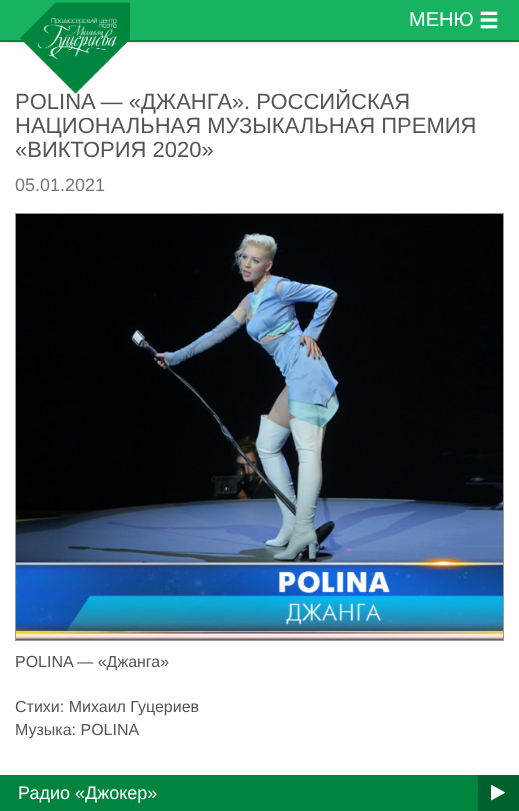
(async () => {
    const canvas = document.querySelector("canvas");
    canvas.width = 519;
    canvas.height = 811;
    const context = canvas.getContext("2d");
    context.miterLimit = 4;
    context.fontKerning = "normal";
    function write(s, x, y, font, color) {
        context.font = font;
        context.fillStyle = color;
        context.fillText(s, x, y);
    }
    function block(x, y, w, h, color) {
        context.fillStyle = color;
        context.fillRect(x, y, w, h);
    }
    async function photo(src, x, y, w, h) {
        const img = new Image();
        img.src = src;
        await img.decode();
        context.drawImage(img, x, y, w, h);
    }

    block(0, 0, 519, 811, "rgb(255, 255, 255)");
    context.fillStyle = "rgba(0, 0, 0, 0.4)";
    context.filter = "blur(2px)";
    context.beginPath();
    context.rect(-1, 39, 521, 2);
    context.fill();
    context.filter = "none";
    block(0, 0, 519, 40, "rgb(23, 179, 96)");
    block(0, 40, 519, 2, "rgb(0, 133, 62)");
    write("POLINA — «ДЖАНГА». РОССИЙСКАЯ", 15, 109, "22px Liberation Sans", "rgb(85, 85, 85)");
    await photo("media/1.png", 20, 2, 110, 92);
    write("МЕНЮ", 409, 26, "20px Liberation Sans", "rgb(255, 255, 255)");
    await photo("media/2.png", 480, 11, 18, 18);
    write("НАЦИОНАЛЬНАЯ МУЗЫКАЛЬНАЯ ПРЕМИЯ", 15, 133, "22px Liberation Sans", "rgb(85, 85, 85)");
    write("«ВИКТОРИЯ 2020»", 15, 157, "22px Liberation Sans", "rgb(85, 85, 85)");
    write("05.01.2021", 15, 191, "18px Liberation Sans", "rgb(119, 119, 119)");
    context.strokeStyle = "rgb(153, 153, 153)";
    context.strokeRect(15.5, 213.5, 488, 427);
    await photo("media/3.png", 16, 214, 487, 426);
    write("POLINA — «Джанга»", 15, 667, "16px Liberation Sans", "rgb(85, 85, 85)");
    write("Стихи: Михаил Гуцериев", 15, 712, "16px Liberation Sans", "rgb(85, 85, 85)");
    write("Музыка: POLINA", 15, 735, "16px Liberation Sans", "rgb(85, 85, 85)");
    block(0, 775, 478, 36, "rgb(0, 133, 62)");
    write("Радио «Джокер»", 18, 799, "18px Liberation Sans", "rgb(255, 255, 255)");
    block(478, 775, 41, 36, "rgb(0, 97, 45)");
    await photo("media/4.png", 491, 784, 15, 17);
})();
